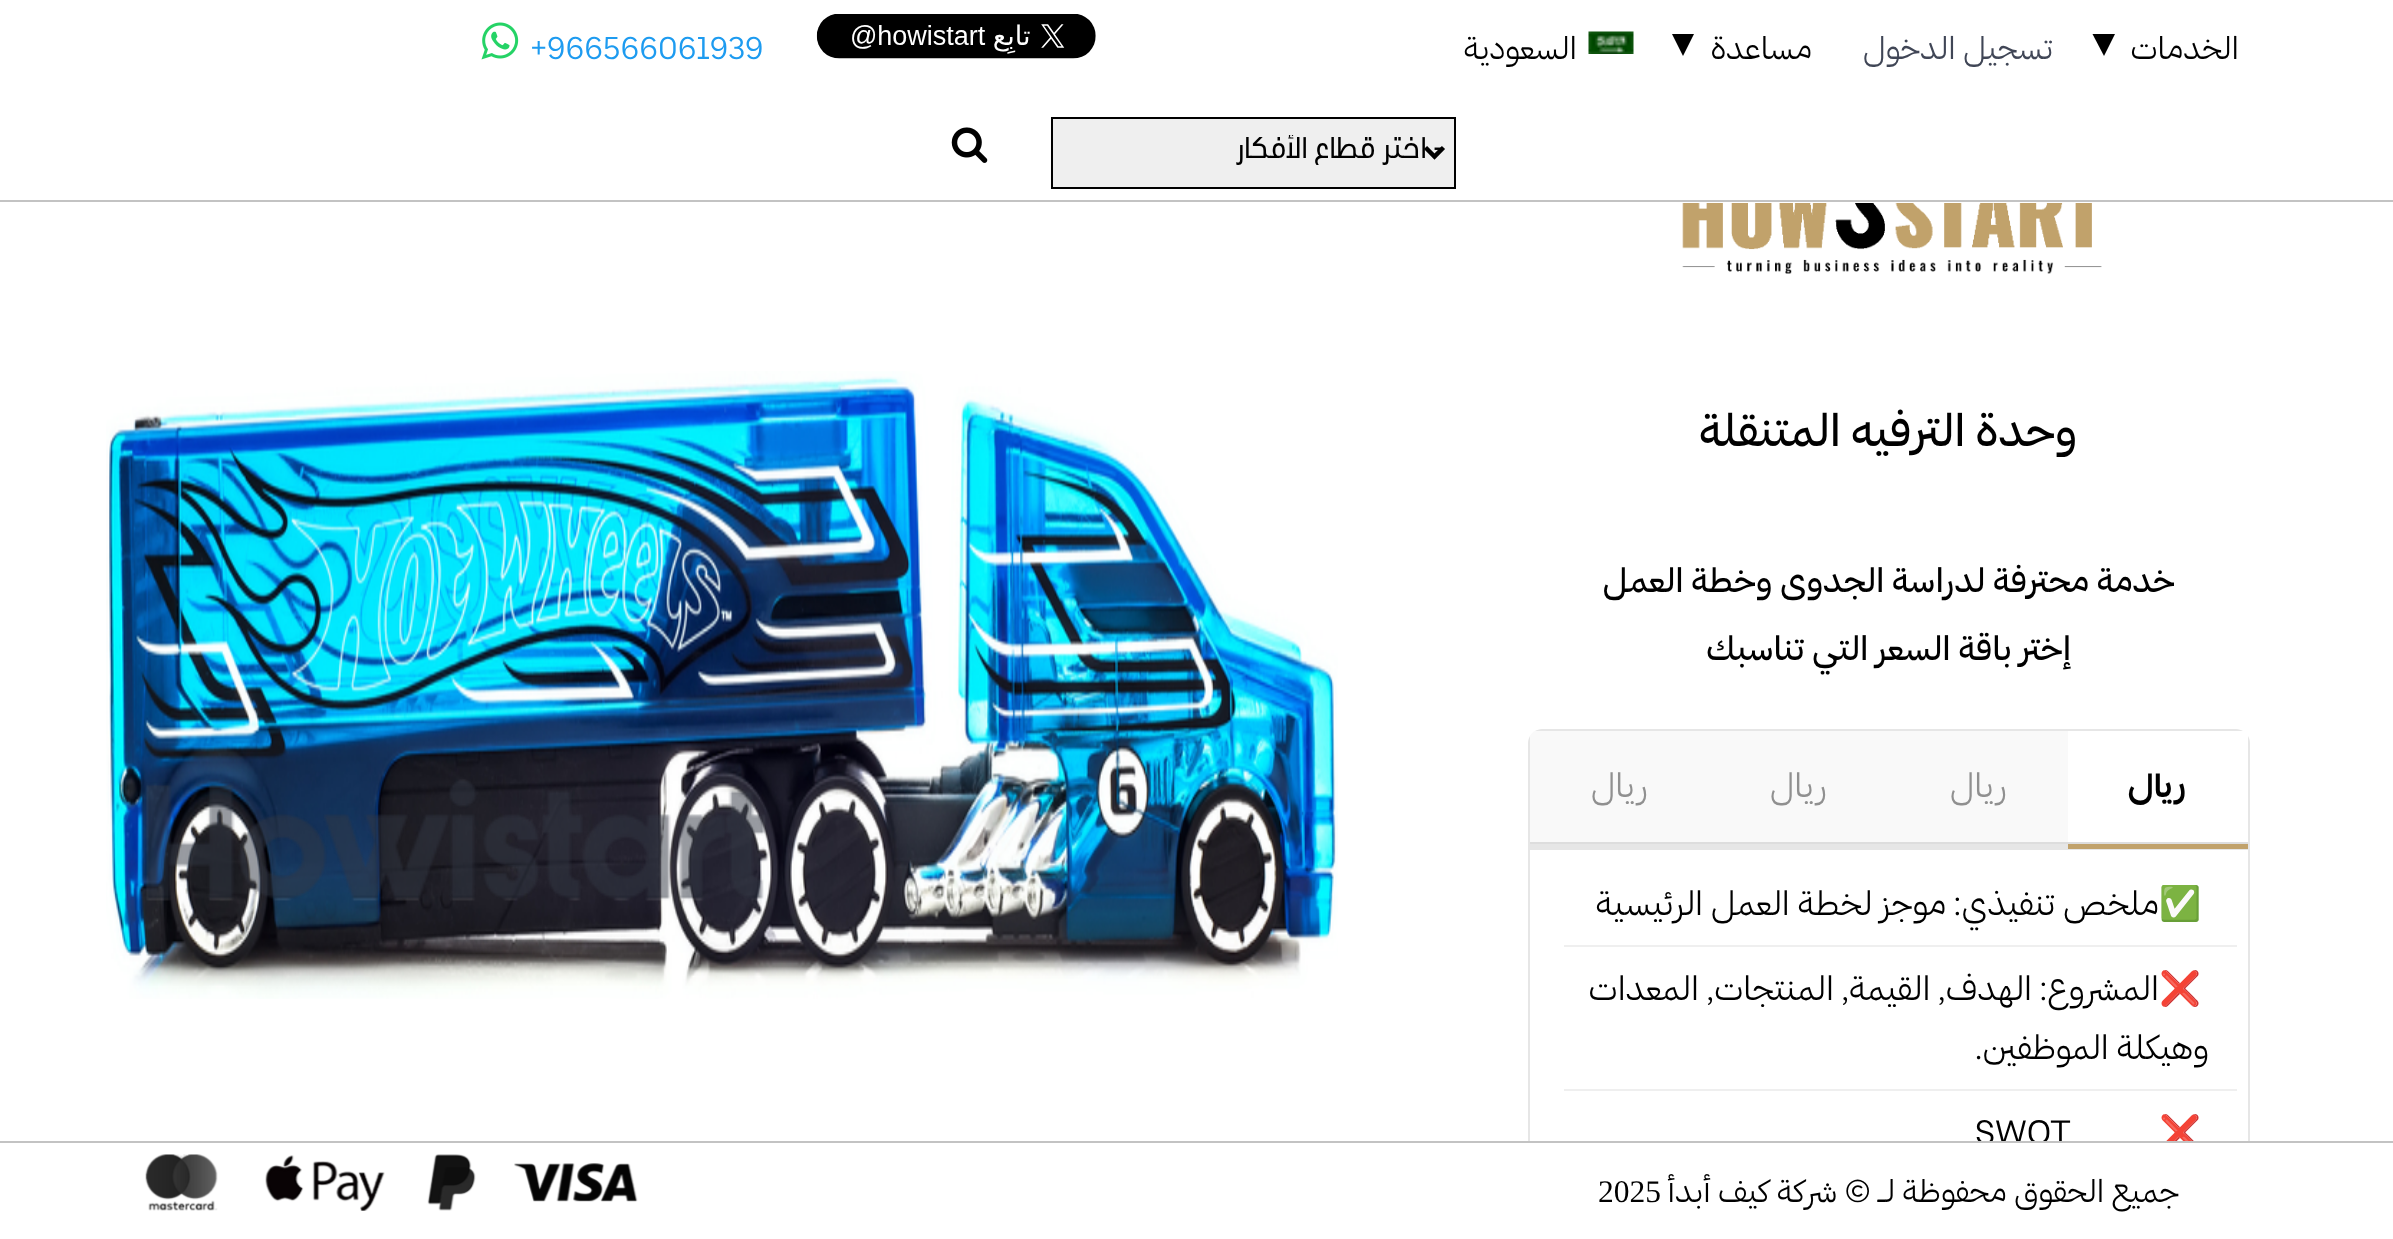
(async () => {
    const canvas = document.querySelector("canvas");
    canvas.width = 2393;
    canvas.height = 1239;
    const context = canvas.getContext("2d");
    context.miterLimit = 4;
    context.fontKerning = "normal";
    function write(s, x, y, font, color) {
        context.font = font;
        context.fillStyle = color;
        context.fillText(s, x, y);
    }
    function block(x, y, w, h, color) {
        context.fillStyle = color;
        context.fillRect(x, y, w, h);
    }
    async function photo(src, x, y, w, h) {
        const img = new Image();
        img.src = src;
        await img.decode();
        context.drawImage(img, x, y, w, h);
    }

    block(0, 0, 2393, 1239, "rgb(255, 255, 255)");
    block(0, 200, 2393, 2, "rgb(195, 195, 195)");
    context.direction = "rtl";
    write("الخدمات", 2239, 59, "31.5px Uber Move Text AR", "rgb(0, 0, 0)");
    context.beginPath();
    context.moveTo(2092.5, 34);
    context.lineTo(2115, 34);
    context.lineTo(2104, 56);
    context.closePath();
    context.fill();
    write("تسجيل الدخول", 2053, 59, "31.5px Uber Move Text AR", "rgb(64, 70, 86)");
    write("مساعدة", 1812, 59, "31.5px Uber Move Text AR", "rgb(0, 0, 0)");
    context.beginPath();
    context.moveTo(1672, 34);
    context.lineTo(1694, 34);
    context.lineTo(1683, 56);
    context.closePath();
    context.fill();
    await photo("media/1.png", 1588, 31, 46, 23);
    write("السعودية", 1577, 59, "31.5px Uber Move Text AR", "rgb(0, 0, 0)");
    await photo("media/2.png", 816, 14, 280, 45);
    context.direction = "ltr";
    write("+966566061939", 530, 59, "31.5px Uber Move Text AR", "rgb(29, 155, 240)");
    await photo("media/3.png", 481, 22, 38, 38);
    context.fillStyle = "rgb(239, 239, 239)";
    context.beginPath();
    context.rect(1052, 118, 403, 70);
    context.fill();
    context.strokeStyle = "rgb(0, 0, 0)";
    context.lineWidth = 2;
    context.stroke();
    context.beginPath();
    context.moveTo(1425.5, 147.5);
    context.lineTo(1434.5, 156.5);
    context.lineTo(1443.5, 147.5);
    context.lineWidth = 4.5;
    context.stroke();
    context.save();
    context.beginPath();
    context.rect(1089, 135, 356, 34);
    context.clip();
    context.direction = "rtl";
    write("- اختر قطاع الأفكار", 1443, 158, "29.25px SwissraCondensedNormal", "rgb(0, 0, 0)");
    context.restore();
    await photo("media/4.png", 951, 127, 37, 36);
    await photo("media/5.png", 106, 371, 1232, 628);
    await photo("media/6.png", 1682, 203, 420, 71);
    context.direction = "rtl";
    write("وحدة الترفيه المتنقلة", 2077, 446, "500 45px Uber Move Text AR", "rgb(0, 0, 0)");
    write("خدمة محترفة لدراسة الجدوى وخطة العمل", 2175, 592, "500 33.75px Uber Move Text AR", "rgb(0, 0, 0)");
    write("إختر باقة السعر التي تناسبك", 2071, 660, "500 33.75px Uber Move Text AR", "rgb(0, 0, 0)");
    context.fillStyle = "rgb(230, 230, 230)";
    context.beginPath();
    context.moveTo(1528, 743);
    context.lineTo(1528, 848);
    context.lineTo(2250, 848);
    context.lineTo(2250, 743);
    context.bezierCurveTo(2250, 740, 2249, 738, 2248, 736);
    context.lineTo(2248, 846);
    context.lineTo(1530, 846);
    context.lineTo(1530, 736);
    context.bezierCurveTo(1529, 738, 1528, 740, 1528, 743);
    context.closePath();
    context.moveTo(1542, 729);
    context.bezierCurveTo(1539, 729, 1537, 730, 1535, 731);
    context.lineTo(2243, 731);
    context.bezierCurveTo(2241, 730, 2239, 729, 2236, 729);
    context.closePath();
    context.fill("evenodd");
    context.save();
    context.beginPath();
    context.roundRect(1528, 729, 722, 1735, 14);
    context.clip();
    block(2068, 731, 180, 111, "rgb(255, 255, 255)");
    context.restore();
    block(0, 1141, 2393, 2, "rgb(195, 195, 195)");
    context.save();
    context.beginPath();
    context.rect(1463, 488, 850, 653);
    context.clip();
    context.strokeStyle = "rgb(230, 230, 230)";
    context.lineWidth = 2;
    context.strokeRect(1529, 849, 720, 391);
    context.restore();
    block(2068, 844, 180, 5, "rgb(193, 162, 107)");
    block(1530, 842, 718, 2, "rgb(221, 221, 221)");
    write("ريال", 2186, 797, "bold 33.75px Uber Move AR", "rgb(0, 0, 0)");
    block(1710, 731, 358, 111, "rgb(249, 249, 249)");
    block(1710, 844, 358, 2, "rgb(230, 230, 230)");
    write("ريال", 2007, 797, "33.75px Uber Move Text AR", "rgb(144, 144, 144)");
    write("ريال", 1827, 797, "33.75px Uber Move Text AR", "rgb(144, 144, 144)");
    context.save();
    context.beginPath();
    context.roundRect(1528, 729, 722, 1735, 14);
    context.clip();
    block(1530, 731, 180, 111, "rgb(249, 249, 249)");
    context.restore();
    block(1530, 844, 180, 4, "rgb(230, 230, 230)");
    write("ريال", 1648, 797, "33.75px Uber Move Text AR", "rgb(144, 144, 144)");
    block(1564, 945, 673, 2, "rgb(239, 239, 239)");
    context.direction = "ltr";
    write("✅", 2159, 915, "33.75px Noto Color Emoji", "rgb(0, 0, 0)");
    context.direction = "rtl";
    write("ملخص تنفيذي: موجز لخطة العمل الرئيسية", 2159, 915, "33.75px Uber Move Text AR", "rgb(0, 0, 0)");
    block(1564, 1089, 673, 2, "rgb(239, 239, 239)");
    context.direction = "ltr";
    write("❌", 2159, 1000, "33.75px Noto Color Emoji", "rgb(0, 0, 0)");
    context.direction = "rtl";
    write("المشروع: الهدف, القيمة, المنتجات, المعدات", 2159, 1000, "33.75px Uber Move Text AR", "rgb(0, 0, 0)");
    write("وهيكلة الموظفين.", 2209, 1059, "33.75px Uber Move Text AR", "rgb(0, 0, 0)");
    context.save();
    context.beginPath();
    context.rect(1463, 488, 850, 653);
    context.clip();
    context.direction = "ltr";
    write("❌", 2159, 1144, "33.75px Noto Color Emoji", "rgb(0, 0, 0)");
    write("SWOT", 1975, 1144, "33.75px Uber Move Text AR", "rgb(0, 0, 0)");
    context.restore();
    await photo("media/7.png", 146, 779, 620, 122);
    write("جميع الحقوق محفوظة لـ © شركة كيف أبدأ", 2179, 1202, "31.5px Uber Move Text AR", "rgb(0, 0, 0)");
    context.direction = "ltr";
    write("2025", 1598, 1202, "31.5px Liberation Serif", "rgb(0, 0, 0)");
    await photo("media/8.png", 145, 1154, 493, 57);
})();
